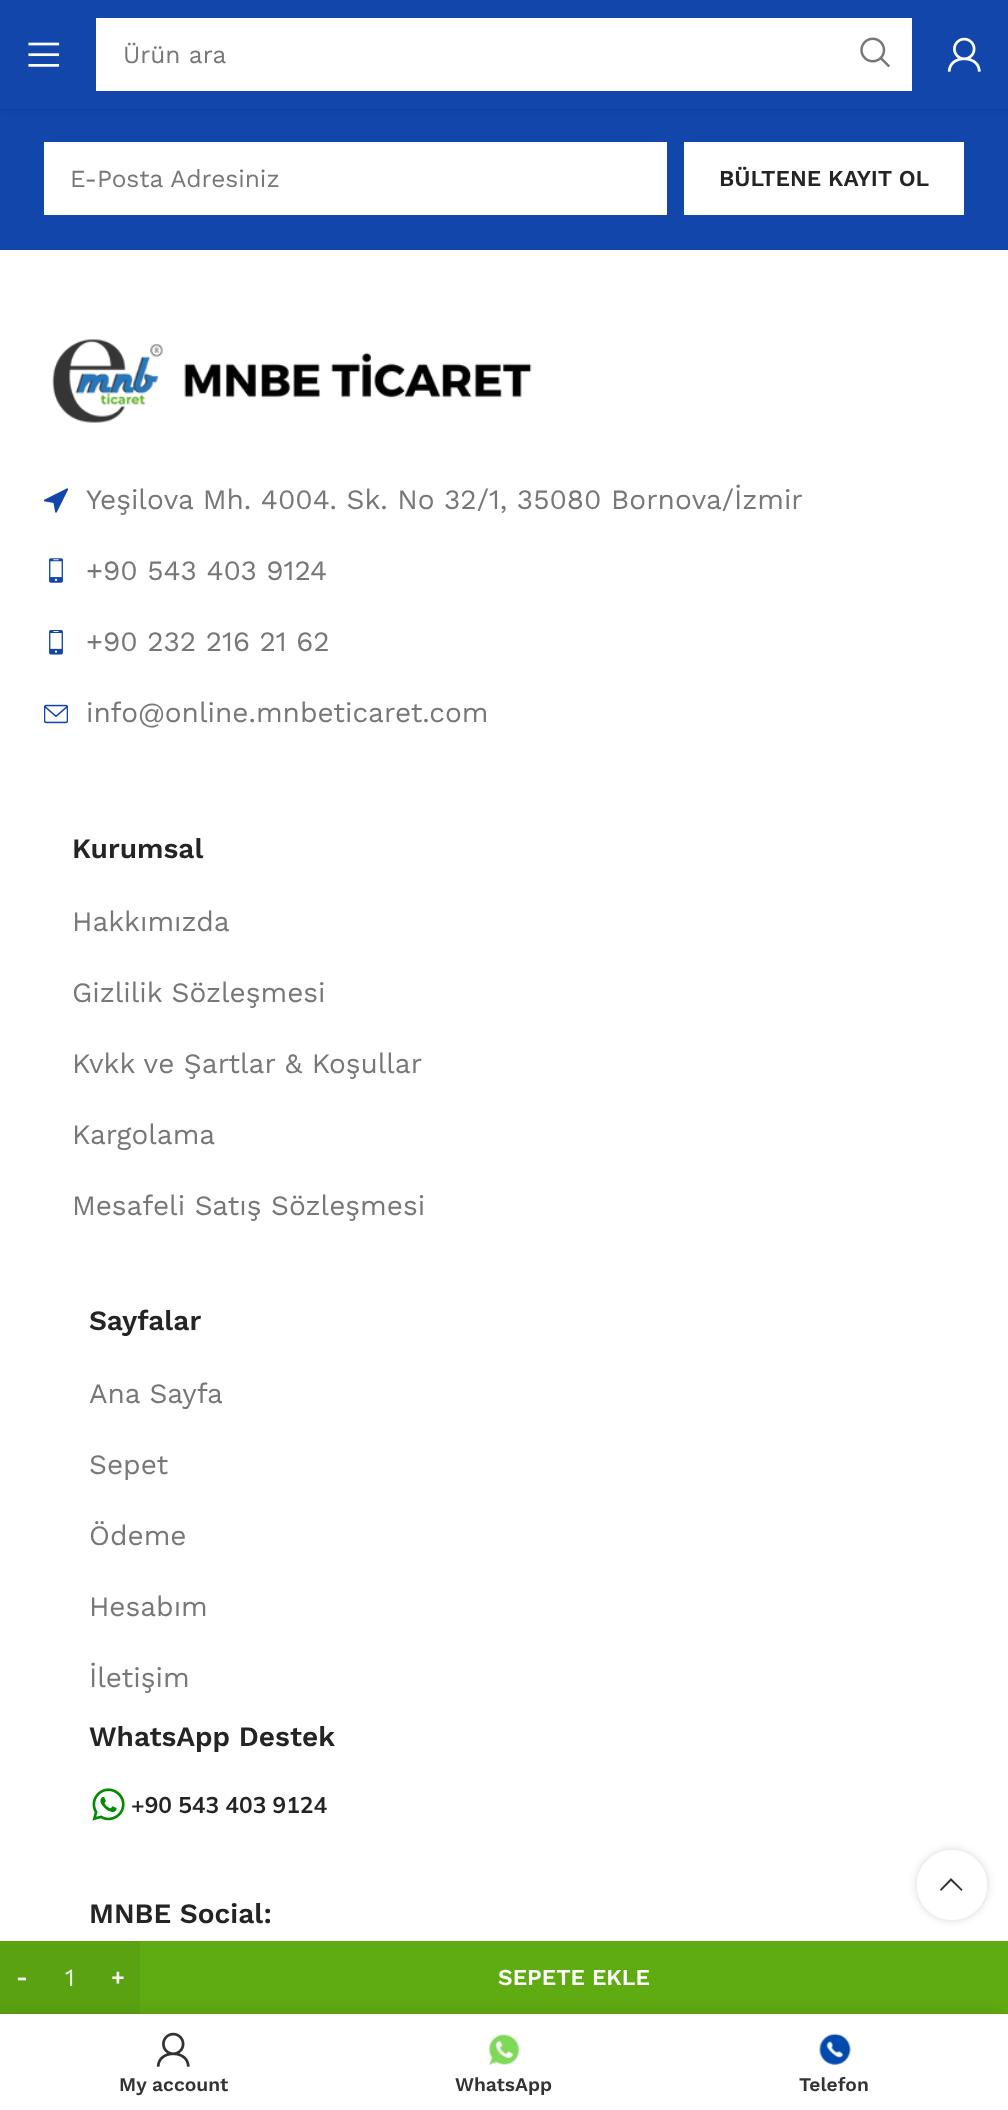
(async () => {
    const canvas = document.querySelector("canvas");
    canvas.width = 1008;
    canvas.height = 2110;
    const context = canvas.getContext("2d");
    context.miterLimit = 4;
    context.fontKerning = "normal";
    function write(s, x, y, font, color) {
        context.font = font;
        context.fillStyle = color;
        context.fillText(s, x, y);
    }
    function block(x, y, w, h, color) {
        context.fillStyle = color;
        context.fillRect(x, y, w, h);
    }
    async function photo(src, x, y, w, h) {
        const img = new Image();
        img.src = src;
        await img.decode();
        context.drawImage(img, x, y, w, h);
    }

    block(0, 0, 1008, 2110, "rgb(255, 255, 255)");
    block(0, 109, 1008, 141, "rgb(18, 70, 171)");
    context.fillStyle = "rgba(0, 0, 0, 0.1)";
    context.filter = "blur(2.5px)";
    context.beginPath();
    context.rect(0, 2, 1008, 108);
    context.fill();
    context.filter = "none";
    block(0, 0, 1008, 109, "rgb(18, 70, 171)");
    await photo("media/1.png", 28, 42, 32, 25);
    block(96, 18, 816, 73, "rgb(255, 255, 255)");
    write("Ürün ara", 123, 63, "24.5px Work Sans", "rgb(119, 119, 119)");
    await photo("media/2.png", 860, 37, 30, 31);
    await photo("media/3.png", 947, 37, 34, 35);
    block(44, 142, 623, 73, "rgb(255, 255, 255)");
    write("E-Posta Adresiniz", 70, 187, "24.5px Work Sans", "rgb(119, 119, 119)");
    block(684, 142, 280, 73, "rgb(255, 255, 255)");
    write("BÜLTENE KAYIT OL", 719, 186, "600 22.75px Work Sans", "rgb(36, 36, 36)");
    await photo("media/4.png", 52, 339, 480, 84);
    await photo("media/5.png", 44, 488, 24, 25);
    write("Yeşilova Mh. 4004. Sk. No 32/1, 35080 Bornova/İzmir", 86, 509, "28px Work Sans", "rgb(119, 119, 119)");
    await photo("media/6.png", 49, 558, 14, 25);
    write("+90 543 403 9124", 86, 580, "28px Work Sans", "rgb(119, 119, 119)");
    await photo("media/7.png", 49, 630, 14, 25);
    write("+90 232 216 21 62", 86, 651, "28px Work Sans", "rgb(119, 119, 119)");
    await photo("media/8.png", 44, 704, 24, 20);
    write("info@online.mnbeticaret.com", 86, 722, "28px Work Sans", "rgb(119, 119, 119)");
    write("Kurumsal", 72, 858, "600 28px Work Sans", "rgb(36, 36, 36)");
    write("Hakkımızda", 72, 931, "28px Work Sans", "rgb(119, 119, 119)");
    write("Gizlilik Sözleşmesi", 72, 1002, "28px Work Sans", "rgb(119, 119, 119)");
    write("Kvkk ve Şartlar & Koşullar", 72, 1073, "28px Work Sans", "rgb(119, 119, 119)");
    write("Kargolama", 72, 1144, "28px Work Sans", "rgb(119, 119, 119)");
    write("Mesafeli Satış Sözleşmesi", 72, 1215, "28px Work Sans", "rgb(119, 119, 119)");
    write("Sayfalar", 89, 1330, "600 28px Work Sans", "rgb(36, 36, 36)");
    write("Ana Sayfa", 89, 1403, "28px Work Sans", "rgb(119, 119, 119)");
    write("Sepet", 89, 1474, "28px Work Sans", "rgb(119, 119, 119)");
    write("Ödeme", 89, 1545, "28px Work Sans", "rgb(119, 119, 119)");
    write("Hesabım", 89, 1616, "28px Work Sans", "rgb(119, 119, 119)");
    write("İletişim", 89, 1687, "28px Work Sans", "rgb(119, 119, 119)");
    write("WhatsApp Destek", 89, 1746, "600 28px Work Sans", "rgb(36, 36, 36)");
    await photo("media/9.png", 92, 1788, 33, 33);
    write("+90 543 403 9124", 131, 1813, "bold 22.75px Mulish", "rgb(36, 36, 36)");
    write("MNBE Social:", 89, 1923, "600 28px Work Sans", "rgb(36, 36, 36)");
    context.save();
    context.beginPath();
    context.moveTo(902, 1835);
    context.lineTo(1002, 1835);
    context.lineTo(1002, 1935);
    context.lineTo(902, 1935);
    context.closePath();
    context.moveTo(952, 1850);
    context.bezierCurveTo(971.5, 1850, 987, 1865.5, 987, 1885);
    context.bezierCurveTo(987, 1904.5, 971.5, 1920, 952, 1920);
    context.bezierCurveTo(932.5, 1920, 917, 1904.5, 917, 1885);
    context.bezierCurveTo(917, 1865.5, 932.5, 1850, 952, 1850);
    context.closePath();
    context.clip("evenodd");
    context.fillStyle = "rgba(0, 0, 0, 0.17)";
    context.filter = "blur(4.5px)";
    context.beginPath();
    context.roundRect(917, 1850, 70, 70, 35);
    context.fill();
    context.filter = "none";
    context.restore();
    context.fillStyle = "rgba(255, 255, 255, 0.9)";
    context.beginPath();
    context.arc(952, 1885, 35, 0, Math.PI * 2);
    context.fill();
    context.fillStyle = "rgb(51, 51, 51)";
    context.beginPath();
    context.moveTo(961.5, 1891);
    context.lineTo(962.5, 1889.5);
    context.lineTo(951, 1878);
    context.lineTo(940, 1889.5);
    context.lineTo(941, 1891);
    context.lineTo(951, 1881);
    context.closePath();
    context.fill();
    block(0, 1941, 140, 73, "rgb(90, 162, 17)");
    write("-", 16, 1985, "600 22.75px Work Sans", "rgb(242, 242, 242)");
    write("1", 65, 1986, "24.5px Work Sans", "rgb(242, 242, 242)");
    write("+", 111, 1985, "600 22.75px Work Sans", "rgb(242, 242, 242)");
    block(140, 1941, 868, 73, "rgb(95, 171, 18)");
    write("SEPETE EKLE", 498, 1985, "600 22.75px Work Sans", "rgb(255, 255, 255)");
    context.fillStyle = "rgba(0, 0, 0, 0.12)";
    context.filter = "blur(8px)";
    context.beginPath();
    context.rect(0, 2014, 1008, 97);
    context.fill();
    context.filter = "none";
    block(0, 2014, 1008, 96, "rgb(255, 255, 255)");
    await photo("media/10.png", 156, 2032, 34, 35);
    write("My account", 119, 2091, "600 19.25px Work Sans", "rgb(51, 51, 51)");
    await photo("media/11.png", 488, 2034, 32, 31);
    write("WhatsApp", 455, 2091, "600 19.25px Work Sans", "rgb(51, 51, 51)");
    await photo("media/12.png", 819, 2033, 32, 32);
    write("Telefon", 799, 2091, "600 19.25px Work Sans", "rgb(51, 51, 51)");
})();
